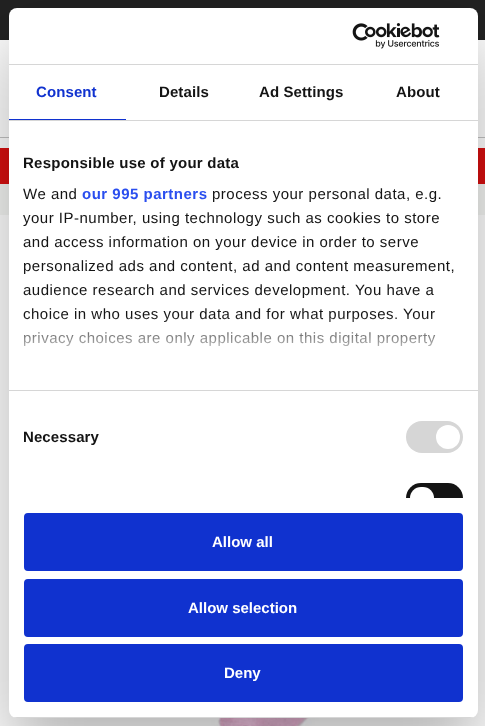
(async () => {
    const canvas = document.querySelector("canvas");
    canvas.width = 485;
    canvas.height = 726;
    const context = canvas.getContext("2d");
    context.miterLimit = 4;
    context.fontKerning = "normal";
    function write(s, x, y, font, color) {
        context.font = font;
        context.fillStyle = color;
        context.fillText(s, x, y);
    }
    function block(x, y, w, h, color) {
        context.fillStyle = color;
        context.fillRect(x, y, w, h);
    }
    function card(x, y, w, h, r, color) {
        context.fillStyle = color;
        context.beginPath();
        context.roundRect(x, y, w, h, r);
        context.fill();
    }
    async function photo(src, x, y, w, h) {
        const img = new Image();
        img.src = src;
        await img.decode();
        context.drawImage(img, x, y, w, h);
    }
    let gradient;

    block(0, 0, 485, 726, "rgb(255, 255, 255)");
    block(0, 0, 485, 40, "rgb(34, 34, 34)");
    block(0, 137, 485, 1, "rgb(196, 196, 196)");
    block(0, 148, 485, 36, "rgb(216, 16, 16)");
    block(0, 184, 485, 31, "rgb(245, 246, 244)");
    await photo("media/2.png", 118, 718, 256, 8);
    context.fillStyle = "rgba(0, 0, 0, 0.3)";
    context.filter = "blur(34px)";
    context.beginPath();
    context.roundRect(9, 40, 469, 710, 8);
    context.fill();
    context.filter = "none";
    card(9, 8, 469, 710, 8, "rgb(255, 255, 255)");
    block(9, 64, 469, 1, "rgb(214, 214, 214)");
    await photo("media/1.png", 352, 23, 88, 26);
    block(9, 120, 469, 1, "rgb(214, 214, 214)");
    block(9, 119, 117, 1, "rgb(16, 50, 207)");
    context.letterSpacing = "0.1px";
    write("Consent", 36, 97, "bold 15px Liberation Sans", "rgb(16, 50, 207)");
    write("Details", 159, 97, "bold 15px Liberation Sans", "rgb(20, 20, 20)");
    write("Ad Settings", 259, 97, "bold 15px Liberation Sans", "rgb(20, 20, 20)");
    write("About", 396, 97, "bold 15px Liberation Sans", "rgb(20, 20, 20)");
    block(9, 390, 469, 1, "rgb(214, 214, 214)");
    context.letterSpacing = "0.25px";
    write("Responsible use of your data", 23, 168, "bold 15px Liberation Sans", "rgb(20, 20, 20)");
    context.letterSpacing = "0.5px";
    write("We and", 23, 199, "15px Liberation Sans", "rgb(20, 20, 20)");
    write("our 995 partners", 82, 199, "bold 15px Liberation Sans", "rgb(42, 78, 239)");
    write("process your personal data, e.g.", 212, 199, "15px Liberation Sans", "rgb(20, 20, 20)");
    write("your IP-number, using technology such as cookies to store", 23, 223, "15px Liberation Sans", "rgb(20, 20, 20)");
    write("and access information on your device in order to serve", 23, 247, "15px Liberation Sans", "rgb(20, 20, 20)");
    write("personalized ads and content, ad and content measurement,", 23, 271, "15px Liberation Sans", "rgb(20, 20, 20)");
    write("audience research and services development. You have a", 23, 295, "15px Liberation Sans", "rgb(20, 20, 20)");
    write("choice in who uses your data and for what purposes. Your", 23, 319, "15px Liberation Sans", "rgb(20, 20, 20)");
    write("privacy choices are only applicable on this digital property", 23, 343, "15px Liberation Sans", "rgb(20, 20, 20)");
    gradient = context.createLinearGradient(237, 390, 237, 315);
    gradient.addColorStop(0, "rgb(255, 255, 255)");
    gradient.addColorStop(0.5, "rgba(255, 255, 255, 0.8)");
    gradient.addColorStop(1, "rgba(255, 255, 255, 0)");
    context.fillStyle = gradient;
    context.fillRect(24, 316, 412, 31);
    context.letterSpacing = "0.1px";
    write("Necessary", 23, 442, "bold 15px Liberation Sans", "rgb(20, 20, 20)");
    card(406, 421, 57, 32, 16, "rgb(214, 214, 214)");
    context.fillStyle = "rgb(255, 255, 255)";
    context.beginPath();
    context.arc(448, 437, 12, 0, Math.PI * 2);
    context.fill();
    context.fillStyle = "rgb(20, 20, 20)";
    context.beginPath();
    context.roundRect(406, 483, 57, 15, [16, 16, 0, 0]);
    context.fill();
    context.fillStyle = "rgb(255, 255, 255)";
    context.beginPath();
    context.roundRect(410, 487, 24, 11, [12, 12, 0, 0]);
    context.fill();
    context.save();
    context.beginPath();
    context.roundRect(9, 8, 469, 710, 8);
    context.clip();
    block(9, 717, 469, 1, "rgb(214, 214, 214)");
    context.restore();
    context.fillStyle = "rgb(16, 50, 207)";
    context.beginPath();
    context.roundRect(25, 514, 437, 56, 3);
    context.fill();
    context.strokeStyle = "rgb(16, 50, 207)";
    context.lineWidth = 2;
    context.stroke();
    context.letterSpacing = "0px";
    write("Allow all", 212, 547, "bold 15px Liberation Sans", "rgb(255, 255, 255)");
    context.fillStyle = "rgb(16, 50, 207)";
    context.beginPath();
    context.roundRect(25, 580, 437, 56, 3);
    context.fill();
    context.stroke();
    write("Allow selection", 188, 613, "bold 15px Liberation Sans", "rgb(255, 255, 255)");
    context.fillStyle = "rgb(16, 50, 207)";
    context.beginPath();
    context.roundRect(25, 645, 437, 56, 3);
    context.fill();
    context.stroke();
    write("Deny", 224, 678, "bold 15px Liberation Sans", "rgb(255, 255, 255)");
})();
